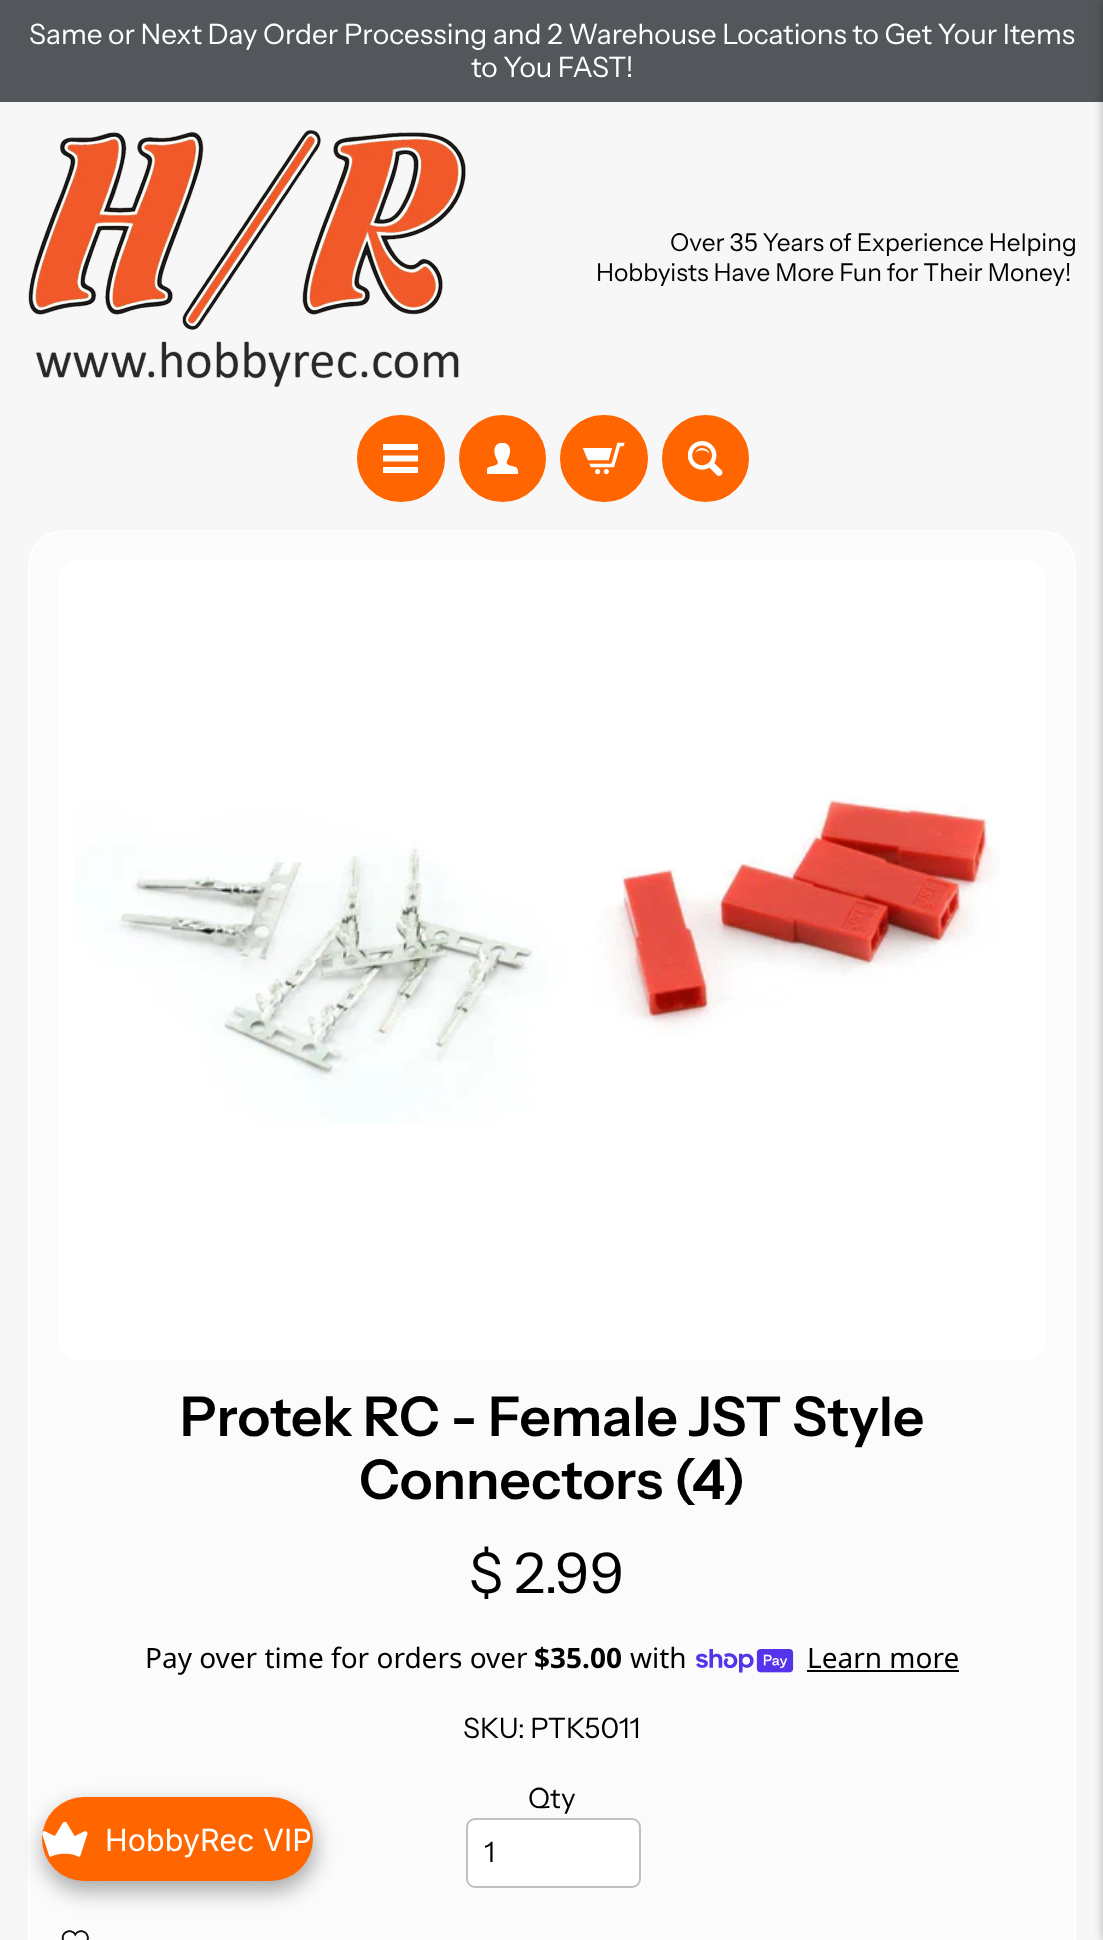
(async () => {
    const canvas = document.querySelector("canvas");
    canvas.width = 1103;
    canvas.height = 1940;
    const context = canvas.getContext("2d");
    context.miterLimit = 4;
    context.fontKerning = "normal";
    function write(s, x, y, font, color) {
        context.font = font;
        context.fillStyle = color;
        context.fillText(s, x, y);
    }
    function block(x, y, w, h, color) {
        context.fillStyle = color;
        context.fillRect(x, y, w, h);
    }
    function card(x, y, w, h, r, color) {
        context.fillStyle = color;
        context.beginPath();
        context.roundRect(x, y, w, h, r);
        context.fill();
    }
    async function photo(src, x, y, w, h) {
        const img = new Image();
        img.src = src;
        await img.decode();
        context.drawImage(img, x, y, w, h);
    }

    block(0, 0, 1103, 1940, "rgb(247, 247, 247)");
    block(0, 0, 1103, 102, "rgb(83, 86, 90)");
    write("Same or Next Day Order Processing and 2 Warehouse Locations to Get Your Items", 29, 44, "28px Instrument Sans", "rgb(255, 255, 255)");
    write("to You FAST!", 471, 77, "28px Instrument Sans", "rgb(255, 255, 255)");
    await photo("media/1.png", 28, 130, 438, 257);
    write("Over 35 Years of Experience Helping", 670, 251, "24.5px Instrument Sans", "rgb(0, 0, 0)");
    write("Hobbyists Have More Fun for Their Money!", 596, 281, "24.5px Instrument Sans", "rgb(0, 0, 0)");
    context.fillStyle = "rgb(255, 101, 1)";
    context.beginPath();
    context.roundRect(359.5, 417.5, 83, 82, 41);
    context.fill();
    context.strokeStyle = "rgb(255, 101, 1)";
    context.lineWidth = 5;
    context.stroke();
    context.fillStyle = "rgb(255, 255, 255)";
    context.beginPath();
    context.moveTo(418, 450);
    context.lineTo(383, 450);
    context.lineTo(383, 444);
    context.lineTo(418, 444);
    context.closePath();
    context.moveTo(418, 455.5);
    context.lineTo(383, 455.5);
    context.lineTo(383, 461.5);
    context.lineTo(418, 461.5);
    context.closePath();
    context.moveTo(418, 467);
    context.lineTo(383, 467);
    context.lineTo(383, 473);
    context.lineTo(418, 473);
    context.closePath();
    context.fill();
    context.fillStyle = "rgb(255, 101, 1)";
    context.beginPath();
    context.arc(502.5, 458.5, 41, 0, Math.PI * 2);
    context.fill();
    context.stroke();
    await photo("media/2.png", 487, 443, 31, 31);
    context.beginPath();
    context.roundRect(562.5, 417.5, 83, 82, 41);
    context.fill();
    context.stroke();
    await photo("media/3.png", 583, 442, 42, 33);
    context.beginPath();
    context.arc(705.5, 458.5, 41, 0, Math.PI * 2);
    context.fill();
    context.stroke();
    await photo("media/4.png", 688, 441, 35, 35);
    context.fillStyle = "rgb(251, 251, 251)";
    context.beginPath();
    context.roundRect(29, 531, 1046, 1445, 34);
    context.fill();
    context.strokeStyle = "rgb(254, 254, 254)";
    context.lineWidth = 2;
    context.stroke();
    card(58, 560, 989, 800, 21, "rgb(255, 255, 255)");
    await photo("media/5.png", 74, 793, 926, 331);
    write("Protek RC - Female JST Style", 180, 1436, "600 54.75px Instrument Sans", "rgb(0, 0, 0)");
    write("Connectors (4)", 359, 1499, "600 54.75px Instrument Sans", "rgb(0, 0, 0)");
    write("$ 2.99", 469, 1593, "56px Instrument Sans", "rgb(0, 0, 0)");
    write("Pay over time for orders over", 145, 1668, "28px Noto Sans", "rgb(0, 0, 0)");
    write("$35.00", 534, 1668, "bold 28px Noto Sans", "rgb(0, 0, 0)");
    write("with", 630, 1668, "28px Noto Sans", "rgb(0, 0, 0)");
    await photo("media/6.png", 696, 1649, 98, 24);
    write("Learn more", 807, 1668, "28px Noto Sans", "rgb(0, 0, 0)");
    block(807, 1670, 152, 2, "rgb(0, 0, 0)");
    write("SKU: PTK5011", 463, 1738, "28px Instrument Sans", "rgb(0, 0, 0)");
    write("Qty", 528, 1808, "28px Instrument Sans", "rgb(0, 0, 0)");
    context.fillStyle = "rgb(255, 255, 255)";
    context.beginPath();
    context.roundRect(467, 1819, 173, 68, 8);
    context.fill();
    context.strokeStyle = "rgb(192, 192, 192)";
    context.stroke();
    context.save();
    context.beginPath();
    context.rect(485, 1831, 110, 45);
    context.clip();
    write("1", 484, 1862, "28px Instrument Sans", "rgb(0, 0, 0)");
    context.restore();
    await photo("media/7.png", 61, 1930, 28, 10);
    context.fillStyle = "rgba(0, 0, 0, 0.5)";
    context.filter = "blur(6px)";
    context.beginPath();
    context.rect(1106, 0, 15, 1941);
    context.fill();
    context.filter = "none";
    context.fillStyle = "rgba(0, 0, 0, 0.1)";
    context.filter = "blur(10.5px)";
    context.beginPath();
    context.roundRect(47, 1803, 272, 84, 42);
    context.fill();
    context.filter = "none";
    context.fillStyle = "rgba(0, 0, 0, 0.25)";
    context.filter = "blur(10.5px)";
    context.beginPath();
    context.roundRect(42, 1808, 271, 84, 42);
    context.fill();
    context.filter = "none";
    card(42, 1797, 271, 84, 42, "rgb(255, 102, 0)");
    await photo("media/8.png", 42, 1822, 46, 35);
    write("HobbyRec VIP", 105, 1851, "30.5px Inter", "rgb(255, 255, 255)");
})();
